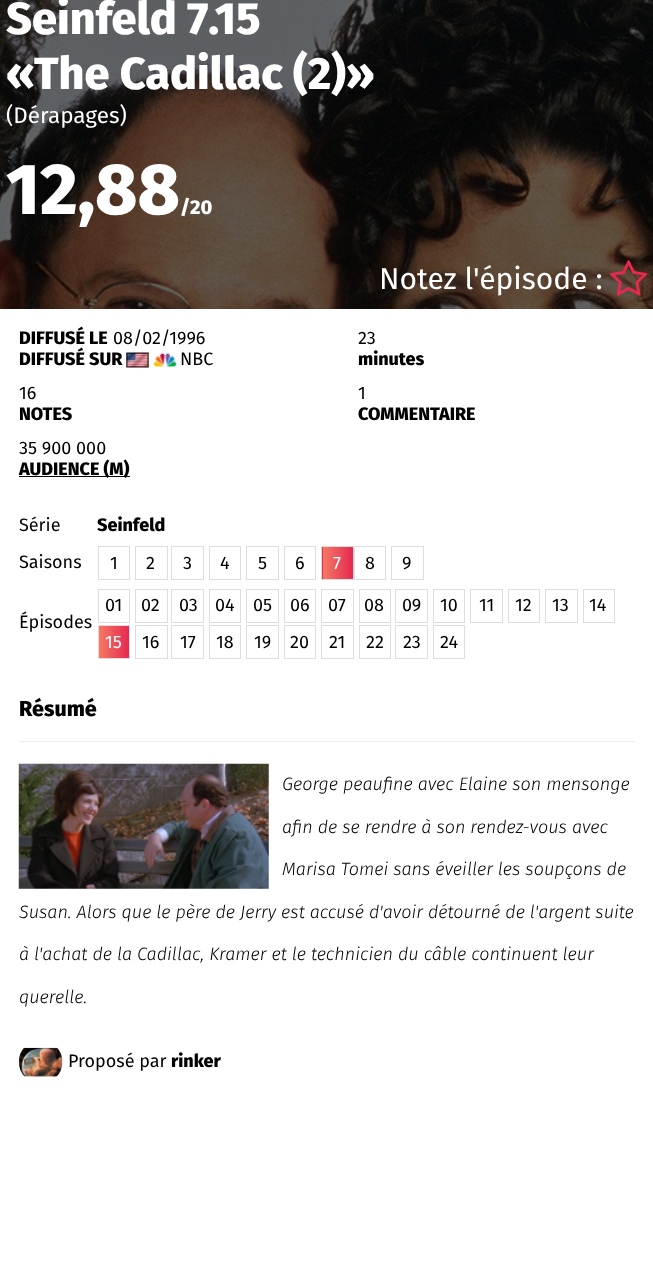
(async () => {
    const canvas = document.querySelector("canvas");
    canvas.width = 653;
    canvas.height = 1269;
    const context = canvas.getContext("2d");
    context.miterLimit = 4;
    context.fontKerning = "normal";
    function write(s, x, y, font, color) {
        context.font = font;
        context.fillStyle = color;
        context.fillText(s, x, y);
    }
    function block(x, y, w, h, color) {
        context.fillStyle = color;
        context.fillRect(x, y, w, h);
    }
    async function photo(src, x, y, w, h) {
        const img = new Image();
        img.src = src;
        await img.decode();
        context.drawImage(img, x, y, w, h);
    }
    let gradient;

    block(0, 0, 653, 1269, "rgb(255, 255, 255)");
    await photo("media/1.png", 0, 0, 653, 309);
    write("Seinfeld 7.15", 6, 34, "800 45px Fira Sans", "rgb(255, 255, 255)");
    write("«", 6, 89, "800 45px Fira Sans", "rgb(255, 255, 255)");
    write("The Cadillac (2)»", 34, 89, "800 45px Fira Sans", "rgb(255, 255, 255)");
    write("(Dérapages)", 6, 123, "22.5px Fira Sans", "rgb(255, 255, 255)");
    write("12,88", 6, 214, "800 72px Fira Sans", "rgb(255, 255, 255)");
    write("/", 180, 214, "800 20px Fira Sans", "rgb(255, 255, 255)");
    write("20", 190, 214, "800 20px Fira Sans", "rgb(255, 255, 255)");
    write("Notez l'épisode :", 379, 289, "30px Fira Sans", "rgb(255, 255, 255)");
    await photo("media/2.png", 610, 260, 38, 36);
    write("DIFFUSÉ LE", 19, 344, "800 18px Fira Sans", "rgb(0, 0, 0)");
    write("08/02/1996", 113, 344, "18px Fira Sans", "rgb(0, 0, 0)");
    write("DIFFUSÉ SUR", 19, 365, "800 18px Fira Sans", "rgb(0, 0, 0)");
    await photo("media/3.png", 126, 352, 23, 16);
    await photo("media/4.png", 153, 352, 24, 16);
    write("NBC", 180, 365, "18px Fira Sans", "rgb(0, 0, 0)");
    write("23", 358, 344, "18px Fira Sans", "rgb(0, 0, 0)");
    write("minutes", 358, 365, "800 18px Fira Sans", "rgb(0, 0, 0)");
    write("16", 19, 399, "18px Fira Sans", "rgb(0, 0, 0)");
    write("NOTES", 19, 420, "800 18px Fira Sans", "rgb(0, 0, 0)");
    write("1", 358, 399, "18px Fira Sans", "rgb(0, 0, 0)");
    write("COMMENTAIRE", 358, 420, "800 18px Fira Sans", "rgb(0, 0, 0)");
    write("35 900 000", 19, 454, "18px Fira Sans", "rgb(0, 0, 0)");
    block(19, 476, 111, 1, "rgb(0, 0, 0)");
    write("AUDIENCE (M)", 19, 475, "800 18px Fira Sans", "rgb(0, 0, 0)");
    write("Série", 19, 531, "18px Fira Sans", "rgb(0, 0, 0)");
    write("Seinfeld", 97, 531, "800 18px Fira Sans", "rgb(0, 0, 0)");
    write("Saisons", 19, 568, "18px Fira Sans", "rgb(0, 0, 0)");
    context.strokeStyle = "rgb(221, 221, 221)";
    context.strokeRect(98.5, 546.5, 31, 33);
    write("1", 110, 569, "18px Fira Sans", "rgb(0, 0, 0)");
    context.strokeRect(135.5, 546.5, 32, 33);
    write("2", 146, 569, "18px Fira Sans", "rgb(0, 0, 0)");
    context.strokeRect(171.5, 546.5, 32, 33);
    write("3", 183, 569, "18px Fira Sans", "rgb(0, 0, 0)");
    context.strokeRect(209.5, 546.5, 31, 33);
    write("4", 220, 569, "18px Fira Sans", "rgb(0, 0, 0)");
    context.strokeRect(246.5, 546.5, 32, 33);
    write("5", 258, 569, "18px Fira Sans", "rgb(0, 0, 0)");
    context.strokeRect(284.5, 546.5, 31, 33);
    write("6", 295, 569, "18px Fira Sans", "rgb(0, 0, 0)");
    gradient = context.createLinearGradient(293, 563, 323, 563);
    gradient.addColorStop(0, "rgb(246, 121, 100)");
    gradient.addColorStop(1, "rgb(229, 41, 81)");
    context.fillStyle = gradient;
    context.fillRect(322, 546, 1, 34);
    gradient = context.createLinearGradient(323, 563, 353, 563);
    gradient.addColorStop(0, "rgb(246, 121, 100)");
    gradient.addColorStop(1, "rgb(229, 41, 81)");
    context.fillStyle = gradient;
    context.fillRect(323, 547, 30, 32);
    context.strokeRect(321.5, 546.5, 32, 33);
    write("7", 333, 569, "18px Fira Sans", "rgb(255, 255, 255)");
    context.strokeRect(354.5, 546.5, 31, 33);
    write("8", 365, 569, "18px Fira Sans", "rgb(0, 0, 0)");
    context.strokeRect(391.5, 546.5, 32, 33);
    write("9", 402, 569, "18px Fira Sans", "rgb(0, 0, 0)");
    write("Épisodes", 19, 628, "18px Fira Sans", "rgb(0, 0, 0)");
    context.strokeRect(98.5, 589.5, 31, 33);
    write("01", 105, 611, "18px Fira Sans", "rgb(0, 0, 0)");
    context.strokeRect(135.5, 589.5, 32, 33);
    write("02", 141, 611, "18px Fira Sans", "rgb(0, 0, 0)");
    context.strokeRect(171.5, 589.5, 32, 33);
    write("03", 179, 611, "18px Fira Sans", "rgb(0, 0, 0)");
    context.strokeRect(209.5, 589.5, 31, 33);
    write("04", 215, 611, "18px Fira Sans", "rgb(0, 0, 0)");
    context.strokeRect(246.5, 589.5, 32, 33);
    write("05", 253, 611, "18px Fira Sans", "rgb(0, 0, 0)");
    context.strokeRect(284.5, 589.5, 31, 33);
    write("06", 290, 611, "18px Fira Sans", "rgb(0, 0, 0)");
    context.strokeRect(321.5, 589.5, 32, 33);
    write("07", 328, 611, "18px Fira Sans", "rgb(0, 0, 0)");
    context.strokeRect(359.5, 589.5, 31, 33);
    write("08", 364, 611, "18px Fira Sans", "rgb(0, 0, 0)");
    context.strokeRect(395.5, 589.5, 32, 33);
    write("09", 402, 611, "18px Fira Sans", "rgb(0, 0, 0)");
    context.strokeRect(433.5, 589.5, 31, 33);
    write("10", 440, 611, "18px Fira Sans", "rgb(0, 0, 0)");
    context.strokeRect(470.5, 589.5, 32, 33);
    write("11", 479, 611, "18px Fira Sans", "rgb(0, 0, 0)");
    context.strokeRect(508.5, 589.5, 31, 33);
    write("12", 515, 611, "18px Fira Sans", "rgb(0, 0, 0)");
    context.strokeRect(545.5, 589.5, 32, 33);
    write("13", 552, 611, "18px Fira Sans", "rgb(0, 0, 0)");
    context.strokeRect(583.5, 589.5, 31, 33);
    write("14", 589, 611, "18px Fira Sans", "rgb(0, 0, 0)");
    gradient = context.createLinearGradient(99, 642, 129, 642);
    gradient.addColorStop(0, "rgb(246, 121, 100)");
    gradient.addColorStop(1, "rgb(229, 41, 81)");
    context.fillStyle = gradient;
    context.fillRect(99, 626, 30, 32);
    context.strokeRect(98.5, 625.5, 31, 33);
    write("15", 105, 648, "18px Fira Sans", "rgb(255, 255, 255)");
    context.strokeRect(135.5, 625.5, 32, 33);
    write("16", 142, 648, "18px Fira Sans", "rgb(0, 0, 0)");
    context.strokeRect(171.5, 625.5, 32, 33);
    write("17", 180, 648, "18px Fira Sans", "rgb(0, 0, 0)");
    context.strokeRect(209.5, 625.5, 31, 33);
    write("18", 216, 648, "18px Fira Sans", "rgb(0, 0, 0)");
    context.strokeRect(246.5, 625.5, 32, 33);
    write("19", 254, 648, "18px Fira Sans", "rgb(0, 0, 0)");
    context.strokeRect(284.5, 625.5, 31, 33);
    write("20", 290, 648, "18px Fira Sans", "rgb(0, 0, 0)");
    context.strokeRect(321.5, 625.5, 32, 33);
    write("21", 329, 648, "18px Fira Sans", "rgb(0, 0, 0)");
    context.strokeRect(359.5, 625.5, 31, 33);
    write("22", 366, 648, "18px Fira Sans", "rgb(0, 0, 0)");
    context.strokeRect(395.5, 625.5, 32, 33);
    write("23", 403, 648, "18px Fira Sans", "rgb(0, 0, 0)");
    context.strokeRect(433.5, 625.5, 31, 33);
    write("24", 440, 648, "18px Fira Sans", "rgb(0, 0, 0)");
    block(19, 741, 616, 1, "rgb(238, 238, 238)");
    write("Résumé", 19, 716, "800 21.5px Fira Sans", "rgb(0, 0, 0)");
    await photo("media/5.png", 18, 763, 251, 126);
    write("George peaufine avec Elaine son mensonge", 282, 790, "italic 300 18px Fira Sans", "rgb(0, 0, 0)");
    write("afin de se rendre à son rendez-vous avec", 282, 833, "italic 300 18px Fira Sans", "rgb(0, 0, 0)");
    write("Marisa Tomei sans éveiller les soupçons de", 282, 875, "italic 300 18px Fira Sans", "rgb(0, 0, 0)");
    write("Susan. Alors que le père de Jerry est accusé d'avoir détourné de l'argent suite", 19, 918, "italic 300 18px Fira Sans", "rgb(0, 0, 0)");
    write("à l'achat de la Cadillac, Kramer et le technicien du câble continuent leur", 19, 960, "italic 300 18px Fira Sans", "rgb(0, 0, 0)");
    write("querelle.", 19, 1003, "italic 300 18px Fira Sans", "rgb(0, 0, 0)");
    await photo("media/6.png", 18, 1047, 45, 30);
    write("Proposé par", 68, 1067, "18px Fira Sans", "rgb(0, 0, 0)");
    write("rinker", 171, 1067, "800 18px Fira Sans", "rgb(0, 0, 0)");
})();
